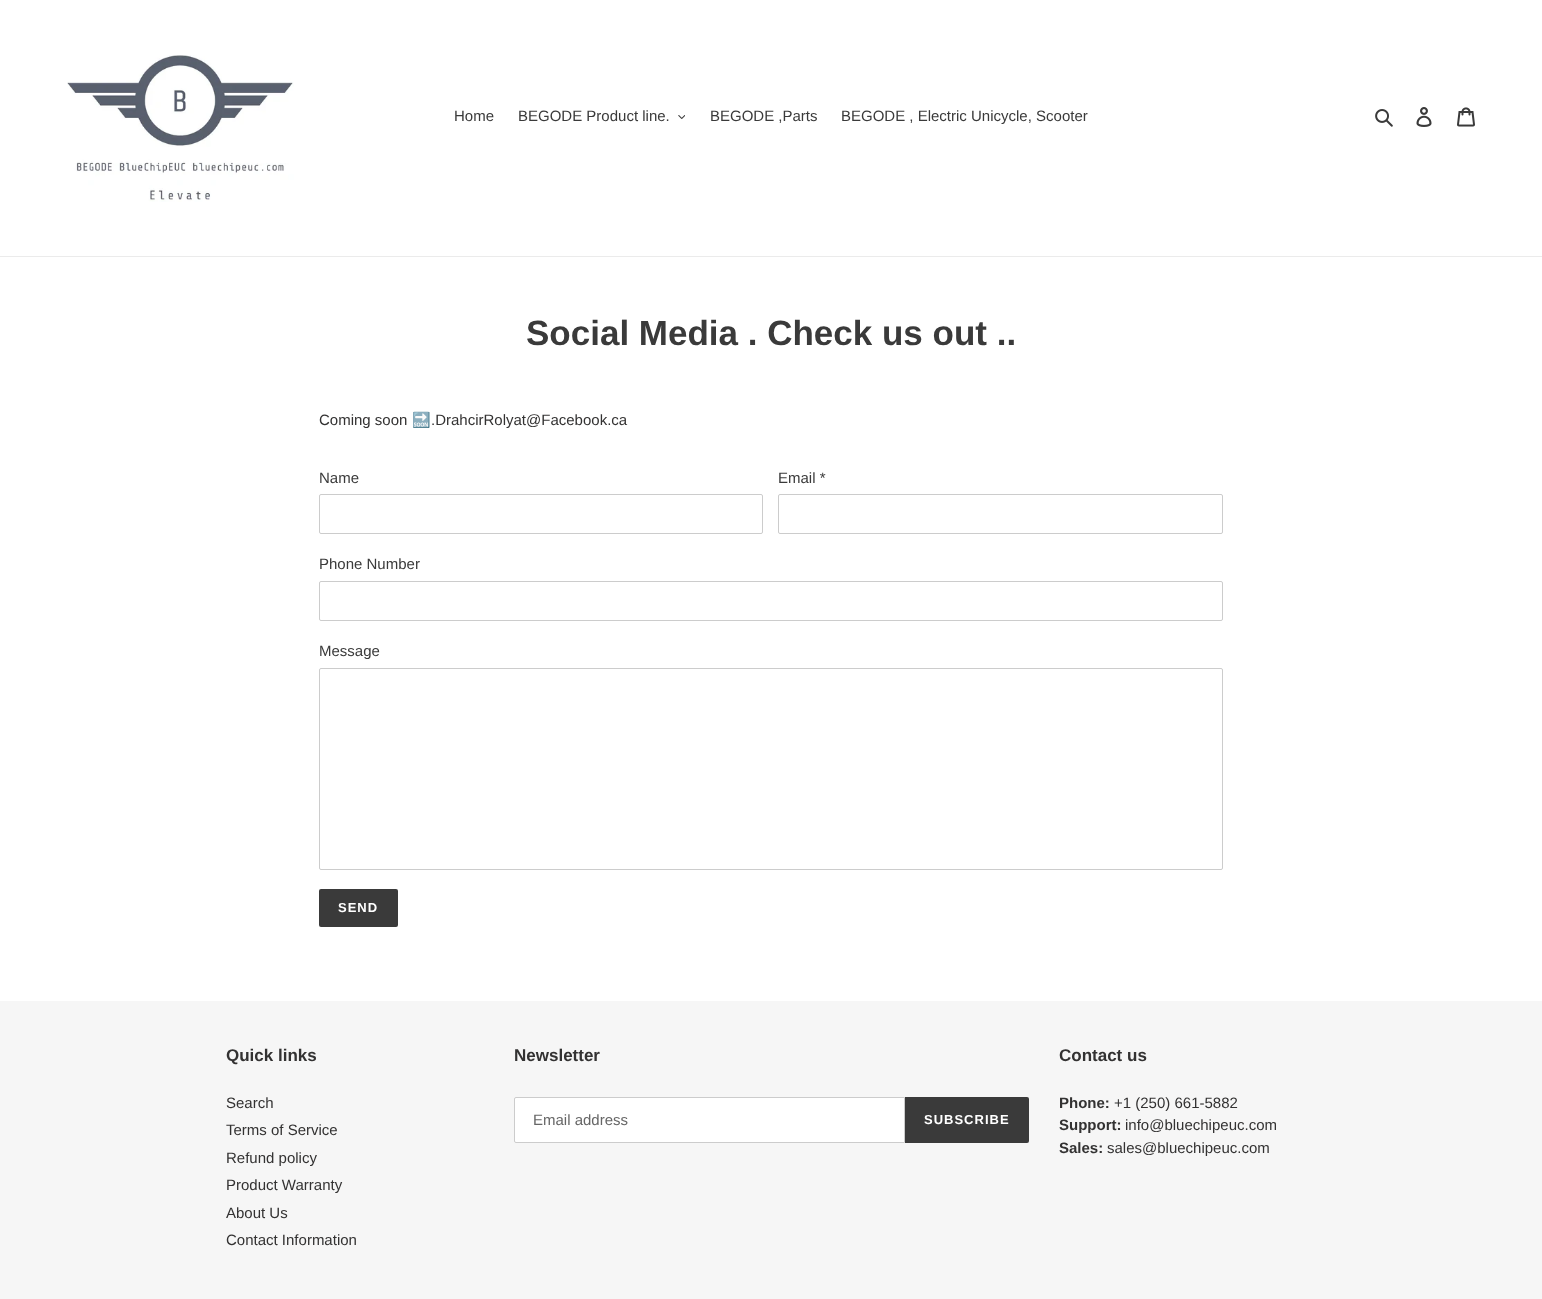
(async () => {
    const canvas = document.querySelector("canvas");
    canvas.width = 1542;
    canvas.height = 1299;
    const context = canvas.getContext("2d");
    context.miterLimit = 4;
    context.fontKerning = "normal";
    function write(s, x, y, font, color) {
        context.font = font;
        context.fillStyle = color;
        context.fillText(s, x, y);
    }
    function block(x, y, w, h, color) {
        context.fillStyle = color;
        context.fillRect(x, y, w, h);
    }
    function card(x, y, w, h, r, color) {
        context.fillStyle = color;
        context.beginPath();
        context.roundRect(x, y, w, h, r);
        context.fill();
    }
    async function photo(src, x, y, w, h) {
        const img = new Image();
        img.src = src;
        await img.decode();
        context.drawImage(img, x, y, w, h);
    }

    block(0, 0, 1542, 1299, "rgb(255, 255, 255)");
    block(0, 256, 1542, 1, "rgb(235, 235, 235)");
    await photo("media/1.png", 67, 55, 227, 147);
    write("Home", 454, 121, "15px Liberation Sans", "rgb(58, 58, 58)");
    write("BEGODE Product line.", 518, 121, "15px Liberation Sans", "rgb(58, 58, 58)");
    await photo("media/2.png", 678, 115, 7, 4);
    write("BEGODE ,Parts", 710, 121, "15px Liberation Sans", "rgb(58, 58, 58)");
    write("BEGODE , Electric Unicycle, Scooter", 841, 121, "15px Liberation Sans", "rgb(58, 58, 58)");
    await photo("media/3.png", 1375, 109, 18, 18);
    await photo("media/4.png", 1416, 107, 16, 20);
    await photo("media/5.png", 1457, 107, 18, 20);
    write("Social Media . Check us out ..", 526, 345, "bold 35px Liberation Sans", "rgb(58, 58, 58)");
    write("Coming soon", 319, 425, "15px Liberation Sans", "rgb(51, 50, 50)");
    write("🔜", 412, 425, "15px Noto Color Emoji", "rgb(51, 50, 50)");
    write(".DrahcirRolyat@Facebook.ca", 431, 425, "15px Liberation Sans", "rgb(51, 50, 50)");
    write("Name", 319, 483, "15px Liberation Sans", "rgb(58, 58, 58)");
    context.beginPath();
    context.roundRect(319.5, 494.5, 443, 39, 1.5);
    context.strokeStyle = "rgb(204, 204, 204)";
    context.stroke();
    write("Email *", 778, 483, "15px Liberation Sans", "rgb(58, 58, 58)");
    context.beginPath();
    context.roundRect(778.5, 494.5, 444, 39, 1.5);
    context.stroke();
    write("Phone Number", 319, 569, "15px Liberation Sans", "rgb(58, 58, 58)");
    context.beginPath();
    context.roundRect(319.5, 581.5, 903, 39, 1.5);
    context.stroke();
    write("Message", 319, 656, "15px Liberation Sans", "rgb(58, 58, 58)");
    context.beginPath();
    context.roundRect(319.5, 668.5, 903, 201, 1.5);
    context.stroke();
    card(319, 889, 79, 38, 2, "rgb(58, 58, 58)");
    context.letterSpacing = "1px";
    write("SEND", 338, 912, "bold 13px Liberation Sans", "rgb(255, 255, 255)");
    block(0, 1001, 1542, 298, "rgb(246, 246, 246)");
    context.letterSpacing = "0px";
    write("Quick links", 226, 1061, "bold 17px Liberation Sans", "rgb(51, 50, 50)");
    write("Search", 226, 1108, "15px Liberation Sans", "rgb(51, 50, 50)");
    write("Terms of Service", 226, 1135, "15px Liberation Sans", "rgb(51, 50, 50)");
    write("Refund policy", 226, 1163, "15px Liberation Sans", "rgb(51, 50, 50)");
    write("Product Warranty", 226, 1190, "15px Liberation Sans", "rgb(51, 50, 50)");
    write("About Us", 226, 1218, "15px Liberation Sans", "rgb(51, 50, 50)");
    write("Contact Information", 226, 1245, "15px Liberation Sans", "rgb(51, 50, 50)");
    write("Newsletter", 514, 1061, "bold 17px Liberation Sans", "rgb(51, 50, 50)");
    context.fillStyle = "rgb(255, 255, 255)";
    context.beginPath();
    context.roundRect(514.5, 1097.5, 390, 45, [1.5, 0, 0, 1.5]);
    context.fill();
    context.stroke();
    write("Email address", 533, 1125, "15px Liberation Sans", "rgb(102, 102, 102)");
    context.fillStyle = "rgb(58, 58, 58)";
    context.beginPath();
    context.roundRect(905, 1097, 124, 46, [0, 2, 2, 0]);
    context.fill();
    context.letterSpacing = "1px";
    write("SUBSCRIBE", 924, 1124, "bold 13px Liberation Sans", "rgb(255, 255, 255)");
    context.letterSpacing = "0px";
    write("Contact us", 1059, 1061, "bold 17px Liberation Sans", "rgb(51, 50, 50)");
    write("Phone:", 1059, 1108, "bold 15px Liberation Sans", "rgb(51, 50, 50)");
    write("+1 (250) 661-5882", 1114, 1108, "15px Liberation Sans", "rgb(51, 50, 50)");
    write("Support:", 1059, 1130, "bold 15px Liberation Sans", "rgb(51, 50, 50)");
    write("info@bluechipeuc.com", 1125, 1130, "15px Liberation Sans", "rgb(51, 50, 50)");
    write("Sales:", 1059, 1153, "bold 15px Liberation Sans", "rgb(51, 50, 50)");
    write("sales@bluechipeuc.com", 1107, 1153, "15px Liberation Sans", "rgb(51, 50, 50)");
})();
